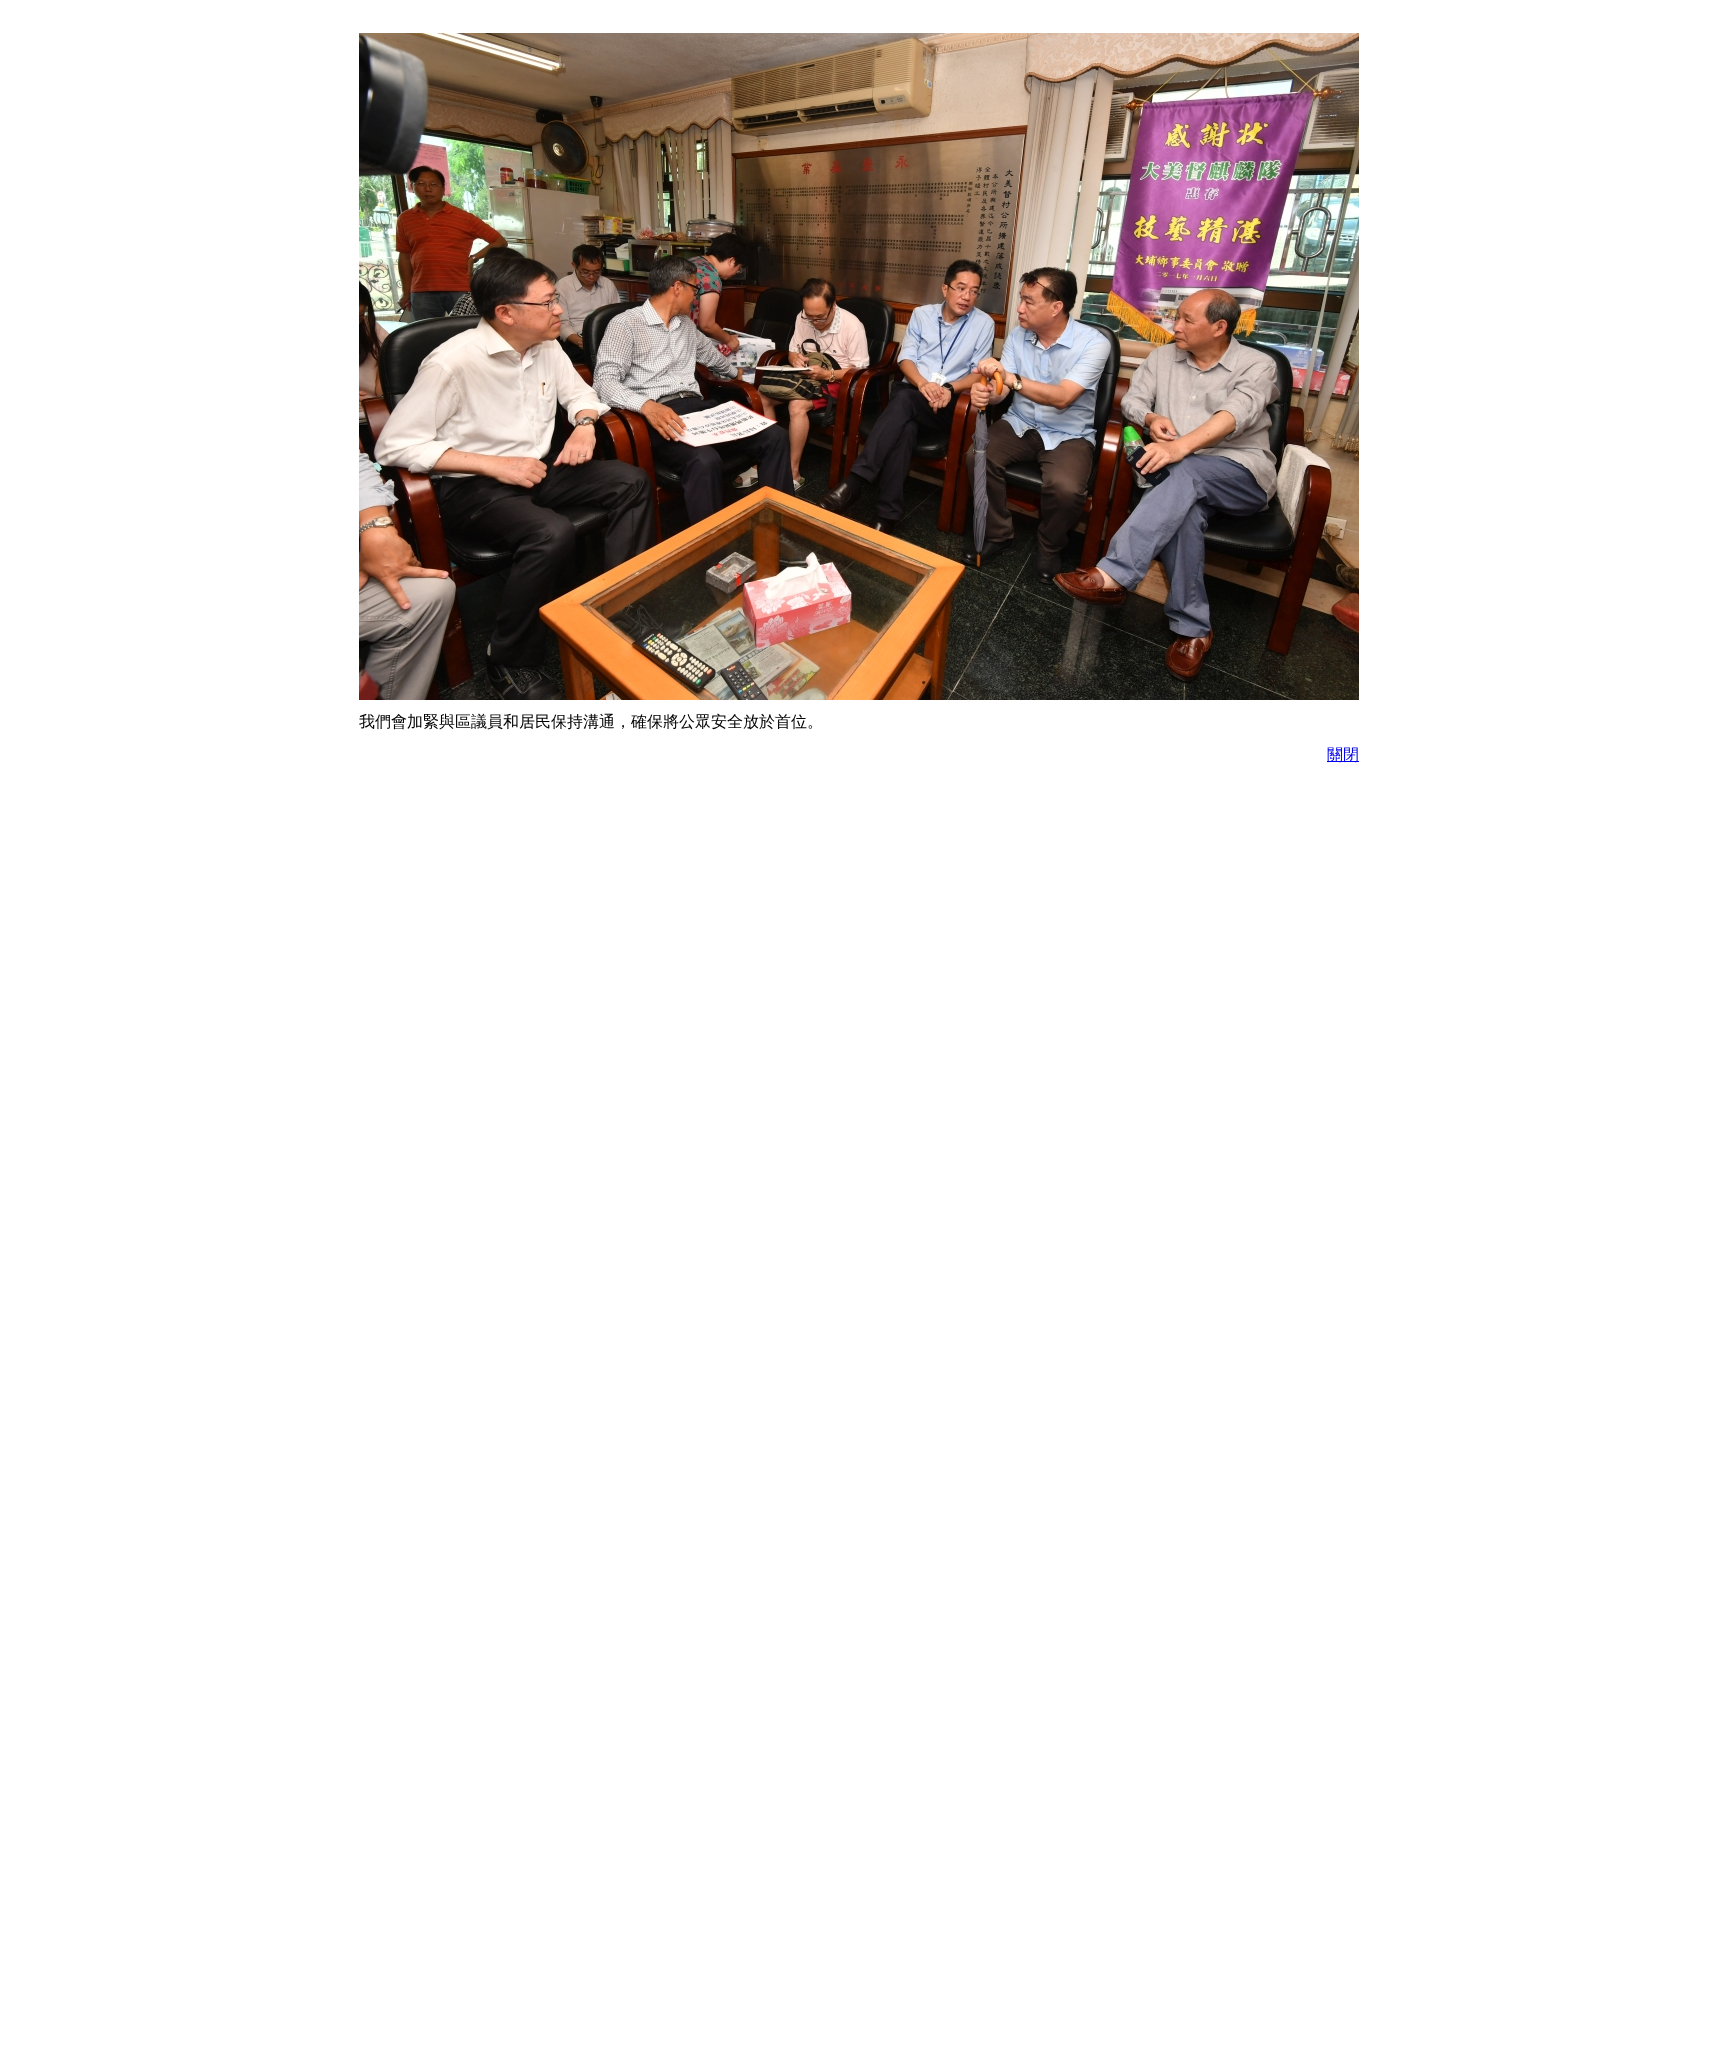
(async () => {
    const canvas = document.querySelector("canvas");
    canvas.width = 1718;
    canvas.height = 2058;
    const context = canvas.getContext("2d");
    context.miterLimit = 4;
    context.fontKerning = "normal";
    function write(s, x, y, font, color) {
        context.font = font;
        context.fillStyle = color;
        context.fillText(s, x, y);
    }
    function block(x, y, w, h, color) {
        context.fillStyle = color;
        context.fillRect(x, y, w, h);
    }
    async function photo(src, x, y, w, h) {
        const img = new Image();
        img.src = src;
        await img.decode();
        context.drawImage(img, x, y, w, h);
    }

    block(0, 0, 1718, 2058, "rgb(255, 255, 255)");
    await photo("media/1.png", 359, 33, 1000, 667);
    write("我們會加緊與區議員和居民保持溝通，確保將公眾安全放於首位。", 359, 727, "500 16px WenQuanYi Zen Hei", "rgb(0, 0, 0)");
    block(1327, 761, 32, 1, "rgb(0, 0, 238)");
    write("關閉", 1327, 760, "500 16px WenQuanYi Zen Hei", "rgb(0, 0, 238)");
})();
